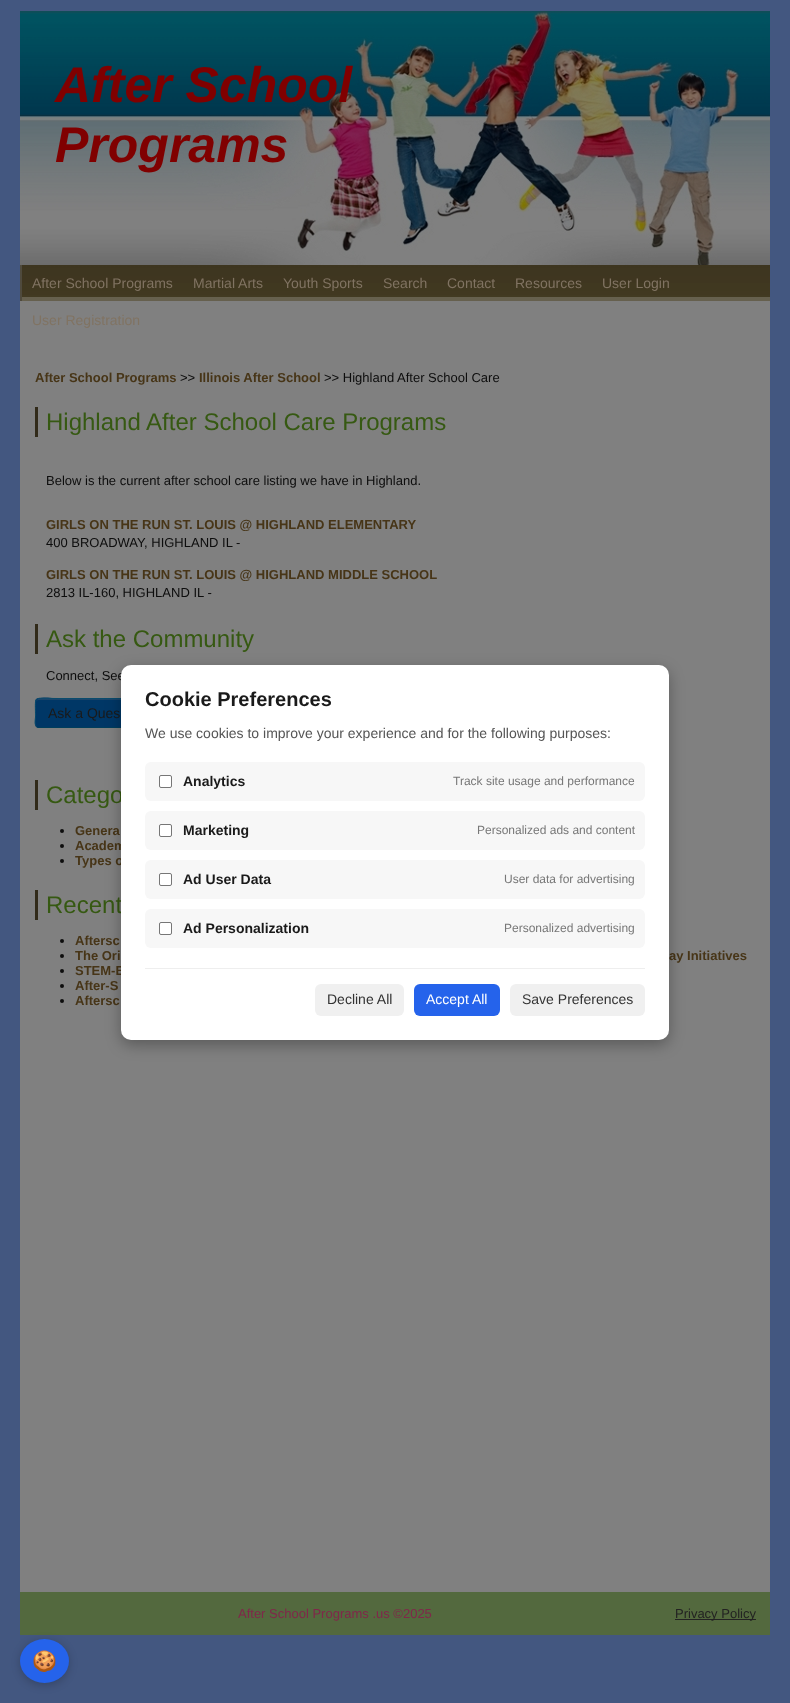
(async () => {
    const canvas = document.querySelector("canvas");
    canvas.width = 790;
    canvas.height = 1703;
    const context = canvas.getContext("2d");
    context.miterLimit = 4;
    context.fontKerning = "normal";
    function write(s, x, y, font, color) {
        context.font = font;
        context.fillStyle = color;
        context.fillText(s, x, y);
    }
    function block(x, y, w, h, color) {
        context.fillStyle = color;
        context.fillRect(x, y, w, h);
    }
    function card(x, y, w, h, r, color) {
        context.fillStyle = color;
        context.beginPath();
        context.roundRect(x, y, w, h, r);
        context.fill();
    }
    async function photo(src, x, y, w, h) {
        const img = new Image();
        img.src = src;
        await img.decode();
        context.drawImage(img, x, y, w, h);
    }

    block(0, 0, 790, 1703, "rgb(67, 87, 128)");
    await photo("media/1.png", 20, 11, 750, 254);
    write("After School", 55, 102, "italic bold 50px Liberation Sans", "rgb(128, 0, 0)");
    write("Programs", 55, 162, "italic bold 50px Liberation Sans", "rgb(128, 0, 0)");
    await photo("media/2.png", 22, 265, 748, 36);
    block(20, 265, 2, 36, "rgb(79, 74, 61)");
    write("After School Programs", 32, 288, "14px Liberation Sans", "rgb(128, 115, 98)");
    write("Martial Arts", 193, 288, "14px Liberation Sans", "rgb(128, 115, 98)");
    write("Youth Sports", 283, 288, "14px Liberation Sans", "rgb(128, 115, 98)");
    write("Search", 383, 288, "14px Liberation Sans", "rgb(128, 115, 98)");
    write("Contact", 447, 288, "14px Liberation Sans", "rgb(128, 115, 98)");
    write("Resources", 515, 288, "14px Liberation Sans", "rgb(128, 115, 98)");
    write("User Login", 602, 288, "14px Liberation Sans", "rgb(128, 115, 98)");
    block(20, 301, 750, 1291, "rgb(128, 128, 128)");
    write("User Registration", 32, 325, "14px Liberation Sans", "rgb(128, 115, 98)");
    write("After School Programs", 35, 382, "bold 13px Liberation Sans", "rgb(71, 53, 23)");
    write(">>", 180, 382, "13px Liberation Sans", "rgb(13, 13, 13)");
    write("Illinois After School", 199, 382, "bold 13px Liberation Sans", "rgb(71, 53, 23)");
    write(">> Highland After School Care", 324, 382, "13px Liberation Sans", "rgb(13, 13, 13)");
    block(35, 407, 3, 30, "rgb(49, 42, 25)");
    write("Highland After School Care Programs", 46, 430, "24px Liberation Sans", "rgb(54, 89, 18)");
    write("Below is the current after school care listing we have in Highland.", 46, 485, "13px Liberation Sans", "rgb(13, 13, 13)");
    write("GIRLS ON THE RUN ST. LOUIS @ HIGHLAND ELEMENTARY", 46, 529, "bold 13px Liberation Sans", "rgb(71, 53, 23)");
    write("400 BROADWAY, HIGHLAND IL -", 46, 547, "13px Liberation Sans", "rgb(13, 13, 13)");
    write("GIRLS ON THE RUN ST. LOUIS @ HIGHLAND MIDDLE SCHOOL", 46, 579, "bold 13px Liberation Sans", "rgb(71, 53, 23)");
    write("2813 IL-160, HIGHLAND IL -", 46, 597, "13px Liberation Sans", "rgb(13, 13, 13)");
    block(35, 624, 3, 30, "rgb(49, 42, 25)");
    write("Ask the Community", 46, 647, "24px Liberation Sans", "rgb(54, 89, 18)");
    write("Connect, See", 46, 680, "13px Liberation Sans", "rgb(13, 13, 13)");
    card(35, 698, 121, 30, 4, "rgb(0, 55, 102)");
    context.fillStyle = "rgb(26, 69, 107)";
    context.beginPath();
    context.moveTo(39, 700);
    context.lineTo(152, 700);
    context.bezierCurveTo(154, 700, 155, 701, 155, 703);
    context.bezierCurveTo(155, 701, 154, 699, 152, 699);
    context.lineTo(58, 699);
    context.bezierCurveTo(57, 699, 36, 694, 36, 703);
    context.bezierCurveTo(36, 701, 37, 700, 39, 700);
    context.closePath();
    context.fill();
    context.beginPath();
    context.moveTo(154.5, 726.5);
    context.bezierCurveTo(154, 727, 153, 727.5, 152, 727.5);
    context.lineTo(39, 727.5);
    context.bezierCurveTo(38, 727.5, 37, 727, 36.5, 726.5);
    context.strokeStyle = "rgb(0, 62, 92)";
    context.stroke();
    context.beginPath();
    context.moveTo(36.5, 726.5);
    context.bezierCurveTo(34, 724, 35.5, 719.5, 35.5, 716.5);
    context.bezierCurveTo(35.5, 694, 32, 698.5, 58, 698.5);
    context.lineTo(133, 698.5);
    context.bezierCurveTo(159, 698.5, 155.5, 694, 155.5, 716.5);
    context.bezierCurveTo(155.5, 719.5, 157, 724, 154.5, 726.5);
    context.strokeStyle = "rgb(11, 76, 109)";
    context.stroke();
    write("Ask a Ques", 48, 718, "14px Liberation Sans", "rgb(26, 26, 26)");
    block(35, 780, 3, 30, "rgb(49, 42, 25)");
    write("Catego", 46, 803, "24px Liberation Sans", "rgb(54, 89, 18)");
    context.fillStyle = "rgb(13, 13, 13)";
    context.beginPath();
    context.arc(62, 831, 2, 0, Math.PI * 2);
    context.fill();
    write("Genera", 75, 835, "bold 13px Liberation Sans", "rgb(71, 53, 23)");
    context.fillStyle = "rgb(13, 13, 13)";
    context.beginPath();
    context.arc(62, 846, 2, 0, Math.PI * 2);
    context.fill();
    write("Academ", 75, 850, "bold 13px Liberation Sans", "rgb(71, 53, 23)");
    context.fillStyle = "rgb(13, 13, 13)";
    context.beginPath();
    context.arc(62, 861, 2, 0, Math.PI * 2);
    context.fill();
    write("Types o", 75, 865, "bold 13px Liberation Sans", "rgb(71, 53, 23)");
    block(35, 890, 3, 30, "rgb(49, 42, 25)");
    write("Recent", 46, 913, "24px Liberation Sans", "rgb(54, 89, 18)");
    context.fillStyle = "rgb(13, 13, 13)";
    context.beginPath();
    context.arc(62, 941, 2, 0, Math.PI * 2);
    context.fill();
    write("Aftersc", 75, 945, "bold 13px Liberation Sans", "rgb(71, 53, 23)");
    context.fillStyle = "rgb(13, 13, 13)";
    context.beginPath();
    context.arc(62, 956, 2, 0, Math.PI * 2);
    context.fill();
    write("The Ori", 75, 960, "bold 13px Liberation Sans", "rgb(71, 53, 23)");
    write("ay Initiatives", 669, 960, "bold 13px Liberation Sans", "rgb(71, 53, 23)");
    context.fillStyle = "rgb(13, 13, 13)";
    context.beginPath();
    context.arc(62, 971, 2, 0, Math.PI * 2);
    context.fill();
    write("STEM-B", 75, 975, "bold 13px Liberation Sans", "rgb(71, 53, 23)");
    context.fillStyle = "rgb(13, 13, 13)";
    context.beginPath();
    context.arc(62, 986, 2, 0, Math.PI * 2);
    context.fill();
    write("After-S", 75, 990, "bold 13px Liberation Sans", "rgb(71, 53, 23)");
    context.fillStyle = "rgb(13, 13, 13)";
    context.beginPath();
    context.arc(62, 1001, 2, 0, Math.PI * 2);
    context.fill();
    write("Aftersc", 75, 1005, "bold 13px Liberation Sans", "rgb(71, 53, 23)");
    block(20, 1592, 750, 43, "rgb(83, 105, 62)");
    write("After School Programs .us ©2025", 238, 1618, "13px Liberation Sans", "rgb(128, 39, 74)");
    block(675, 1619, 81, 1, "rgb(35, 35, 34)");
    write("Privacy Policy", 675, 1618, "13px Liberation Sans", "rgb(35, 35, 34)");
    context.fillStyle = "rgba(0, 0, 0, 0.3)";
    context.filter = "blur(7.5px)";
    context.beginPath();
    context.roundRect(121, 670, 548, 375, 10);
    context.fill();
    context.filter = "none";
    card(121, 665, 548, 375, 10, "rgb(255, 255, 255)");
    write("Cookie Preferences", 145, 706, "bold 20px Liberation Sans", "rgb(26, 26, 26)");
    write("We use cookies to improve your experience and for the following purposes:", 145, 738, "14px Liberation Sans", "rgb(85, 85, 85)");
    card(145, 762, 500, 39, 6, "rgb(247, 247, 247)");
    context.fillStyle = "rgb(255, 255, 255)";
    context.beginPath();
    context.roundRect(159.5, 775.5, 12, 12, 1.5);
    context.fill();
    context.strokeStyle = "rgb(118, 118, 118)";
    context.stroke();
    write("Analytics", 183, 786, "bold 14px Liberation Sans", "rgb(26, 26, 26)");
    write("Track site usage and performance", 453, 785, "12px Liberation Sans", "rgb(119, 119, 119)");
    card(145, 811, 500, 39, 6, "rgb(247, 247, 247)");
    context.fillStyle = "rgb(255, 255, 255)";
    context.beginPath();
    context.roundRect(159.5, 824.5, 12, 12, 1.5);
    context.fill();
    context.stroke();
    write("Marketing", 183, 835, "bold 14px Liberation Sans", "rgb(26, 26, 26)");
    write("Personalized ads and content", 477, 834, "12px Liberation Sans", "rgb(119, 119, 119)");
    card(145, 860, 500, 39, 6, "rgb(247, 247, 247)");
    context.fillStyle = "rgb(255, 255, 255)";
    context.beginPath();
    context.roundRect(159.5, 873.5, 12, 12, 1.5);
    context.fill();
    context.stroke();
    write("Ad User Data", 183, 884, "bold 14px Liberation Sans", "rgb(26, 26, 26)");
    write("User data for advertising", 504, 883, "12px Liberation Sans", "rgb(119, 119, 119)");
    card(145, 909, 500, 39, 6, "rgb(247, 247, 247)");
    context.fillStyle = "rgb(255, 255, 255)";
    context.beginPath();
    context.roundRect(159.5, 922.5, 12, 12, 1.5);
    context.fill();
    context.stroke();
    write("Ad Personalization", 183, 933, "bold 14px Liberation Sans", "rgb(26, 26, 26)");
    write("Personalized advertising", 504, 932, "12px Liberation Sans", "rgb(119, 119, 119)");
    block(145, 968, 500, 1, "rgb(238, 238, 238)");
    card(315, 984, 89, 32, 6, "rgb(240, 240, 240)");
    write("Decline All", 327, 1004, "14px Liberation Sans", "rgb(51, 51, 51)");
    card(414, 984, 86, 32, 6, "rgb(37, 99, 235)");
    write("Accept All", 426, 1004, "14px Liberation Sans", "rgb(255, 255, 255)");
    card(510, 984, 135, 32, 6, "rgb(240, 240, 240)");
    write("Save Preferences", 522, 1004, "14px Liberation Sans", "rgb(51, 51, 51)");
    context.fillStyle = "rgba(0, 0, 0, 0.2)";
    context.filter = "blur(4px)";
    context.beginPath();
    context.roundRect(20, 1641, 49, 44, 22);
    context.fill();
    context.filter = "none";
    context.fillStyle = "rgb(37, 99, 235)";
    context.beginPath();
    context.ellipse(44.5, 1661, 24.5, 22, 0, 0, Math.PI * 2);
    context.fill();
    write("🍪", 32, 1668, "20px Noto Color Emoji", "rgb(255, 255, 255)");
})();
